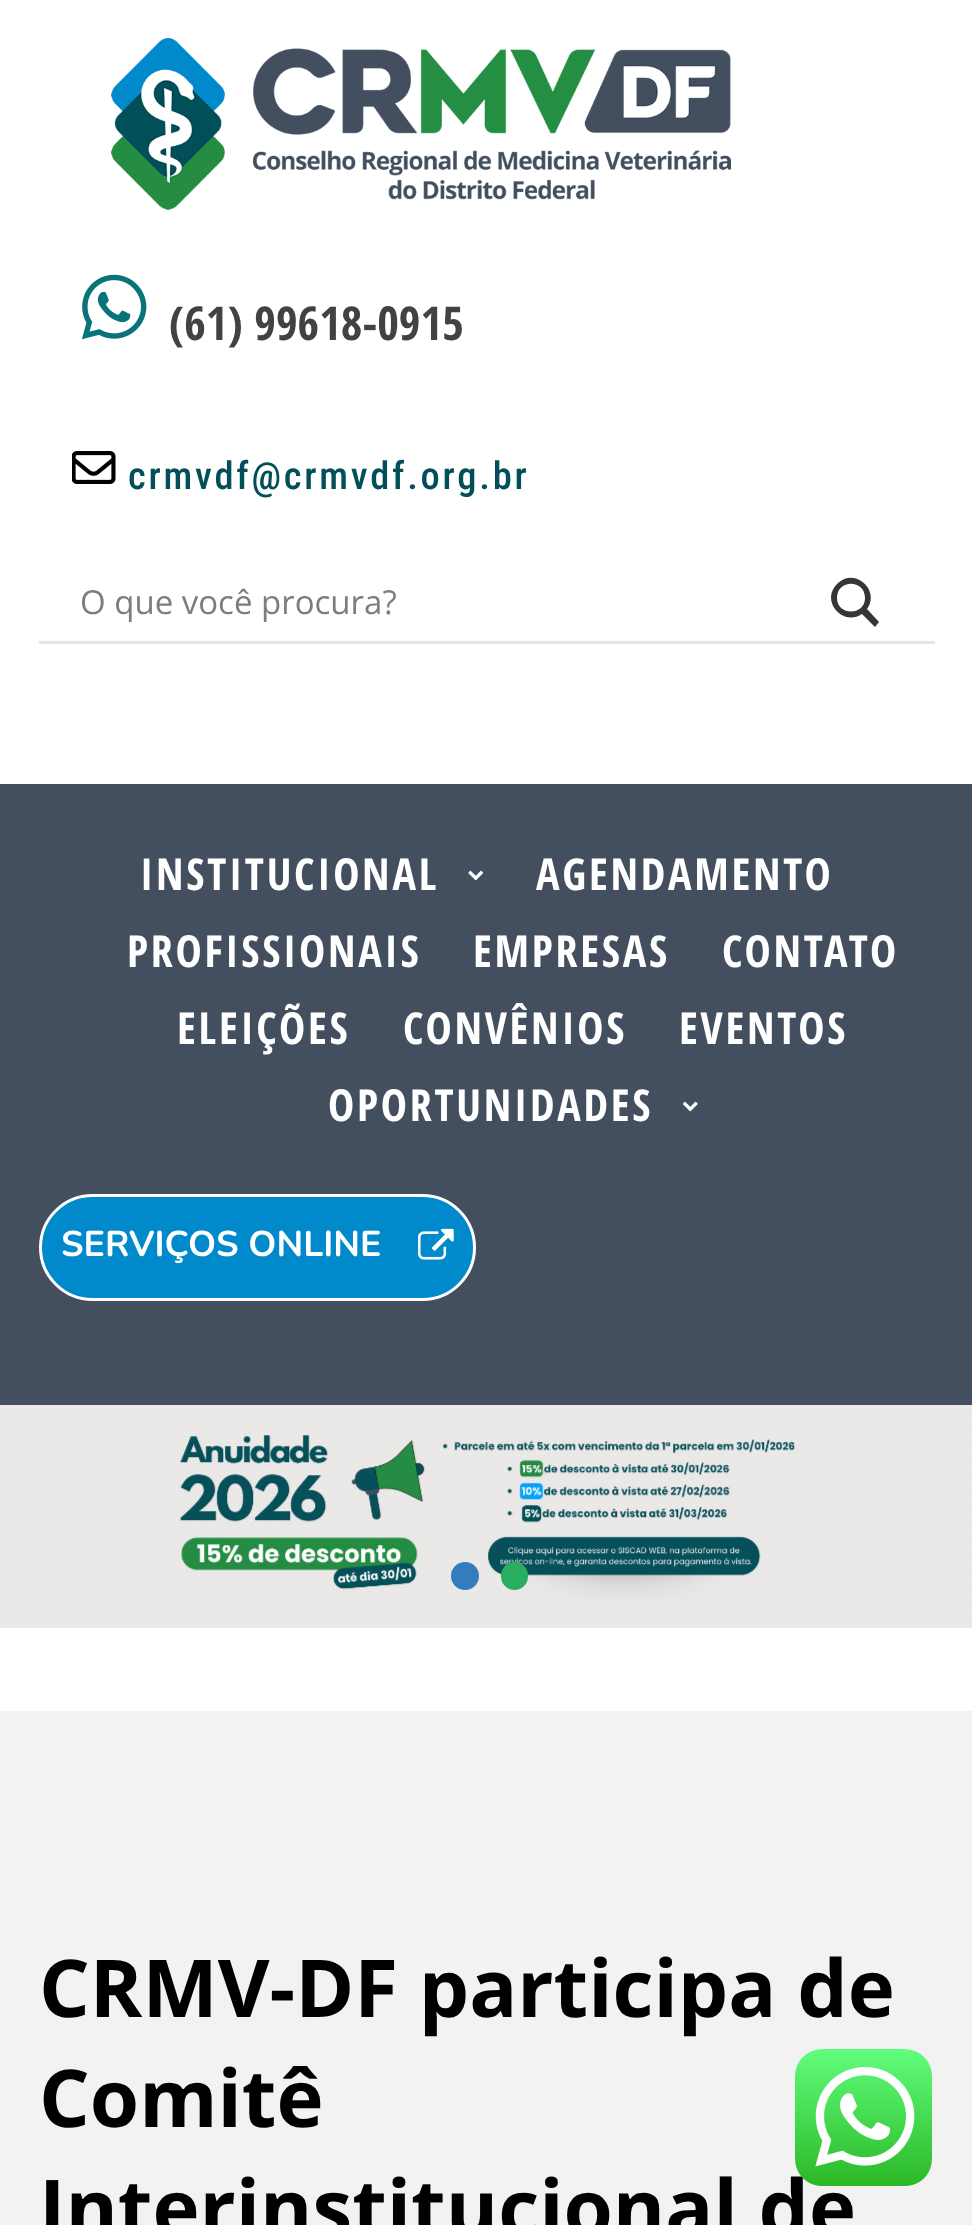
(async () => {
    const canvas = document.querySelector("canvas");
    canvas.width = 972;
    canvas.height = 2225;
    const context = canvas.getContext("2d");
    context.miterLimit = 4;
    context.fontKerning = "normal";
    function write(s, x, y, font, color) {
        context.font = font;
        context.fillStyle = color;
        context.fillText(s, x, y);
    }
    function block(x, y, w, h, color) {
        context.fillStyle = color;
        context.fillRect(x, y, w, h);
    }
    function card(x, y, w, h, r, color) {
        context.fillStyle = color;
        context.beginPath();
        context.roundRect(x, y, w, h, r);
        context.fill();
    }
    async function photo(src, x, y, w, h) {
        const img = new Image();
        img.src = src;
        await img.decode();
        context.drawImage(img, x, y, w, h);
    }

    block(0, 0, 972, 2225, "rgb(255, 255, 255)");
    await photo("media/1.png", 111, 38, 620, 172);
    await photo("media/2.png", 81, 274, 66, 66);
    write("(61) 99618-0915", 169, 340, "bold 46.75px Open Sans Condensed", "rgb(66, 66, 66)");
    await photo("media/3.png", 72, 451, 44, 33);
    context.letterSpacing = "2.75px";
    write("crmvdf@crmvdf.org.br", 128, 489, "500 38.5px Roboto Condensed", "rgb(2, 79, 89)");
    block(39, 641, 896, 3, "rgb(228, 228, 228)");
    context.letterSpacing = "0px";
    write("O que você procura?", 80, 614, "33px Open Sans", "rgb(125, 125, 125)");
    context.fillStyle = "rgb(54, 54, 54)";
    context.beginPath();
    context.moveTo(879, 622);
    context.lineTo(867, 609);
    context.bezierCurveTo(881, 590, 854, 566, 837, 584);
    context.bezierCurveTo(820, 601, 843, 627, 862, 614);
    context.lineTo(875, 627);
    context.closePath();
    context.moveTo(837, 598);
    context.bezierCurveTo(837, 579, 865, 579, 865, 598);
    context.bezierCurveTo(865, 616, 837, 616, 837, 598);
    context.closePath();
    context.fill();
    block(0, 784, 972, 621, "rgb(67, 79, 95)");
    context.letterSpacing = "2.75px";
    write("INSTITUCIONAL", 140, 890, "bold 44px Open Sans Condensed", "rgb(255, 255, 255)");
    await photo("media/4.png", 468, 870, 16, 11);
    write("AGENDAMENTO", 536, 890, "bold 44px Open Sans Condensed", "rgb(255, 255, 255)");
    write("PROFISSIONAIS", 127, 967, "bold 44px Open Sans Condensed", "rgb(255, 255, 255)");
    write("EMPRESAS", 473, 967, "bold 44px Open Sans Condensed", "rgb(255, 255, 255)");
    write("CONTATO", 722, 967, "bold 44px Open Sans Condensed", "rgb(255, 255, 255)");
    write("ELEIÇÕES", 177, 1044, "bold 44px Open Sans Condensed", "rgb(255, 255, 255)");
    write("CONVÊNIOS", 403, 1044, "bold 44px Open Sans Condensed", "rgb(255, 255, 255)");
    write("EVENTOS", 679, 1044, "bold 44px Open Sans Condensed", "rgb(255, 255, 255)");
    write("OPORTUNIDADES", 328, 1121, "bold 44px Open Sans Condensed", "rgb(255, 255, 255)");
    await photo("media/5.png", 682, 1101, 16, 11);
    context.fillStyle = "rgb(0, 138, 203)";
    context.beginPath();
    context.roundRect(40.5, 1195.5, 434, 104, 52);
    context.fill();
    context.strokeStyle = "rgb(255, 255, 255)";
    context.lineWidth = 3;
    context.stroke();
    context.letterSpacing = "0px";
    write("SERVIÇOS ONLINE", 61, 1256, "bold 35.75px Nunito", "rgb(255, 255, 255)");
    await photo("media/6.png", 418, 1228, 36, 32);
    await photo("media/7.png", 0, 1405, 972, 223);
    context.fillStyle = "rgb(53, 124, 189)";
    context.beginPath();
    context.arc(465, 1576, 14, 0, Math.PI * 2);
    context.fill();
    card(501, 1562, 27, 28, 13.5, "rgb(39, 174, 96)");
    block(0, 1711, 972, 514, "rgb(242, 242, 242)");
    write("CRMV-DF participa de", 39, 2017, "bold 79.75px Open Sans", "rgb(0, 0, 0)");
    write("Comitê", 39, 2127, "bold 79.75px Open Sans", "rgb(0, 0, 0)");
    write("Interinstitucional de", 39, 2237, "bold 79.75px Open Sans", "rgb(0, 0, 0)");
    await photo("media/8.png", 795, 2049, 137, 137);
})();
